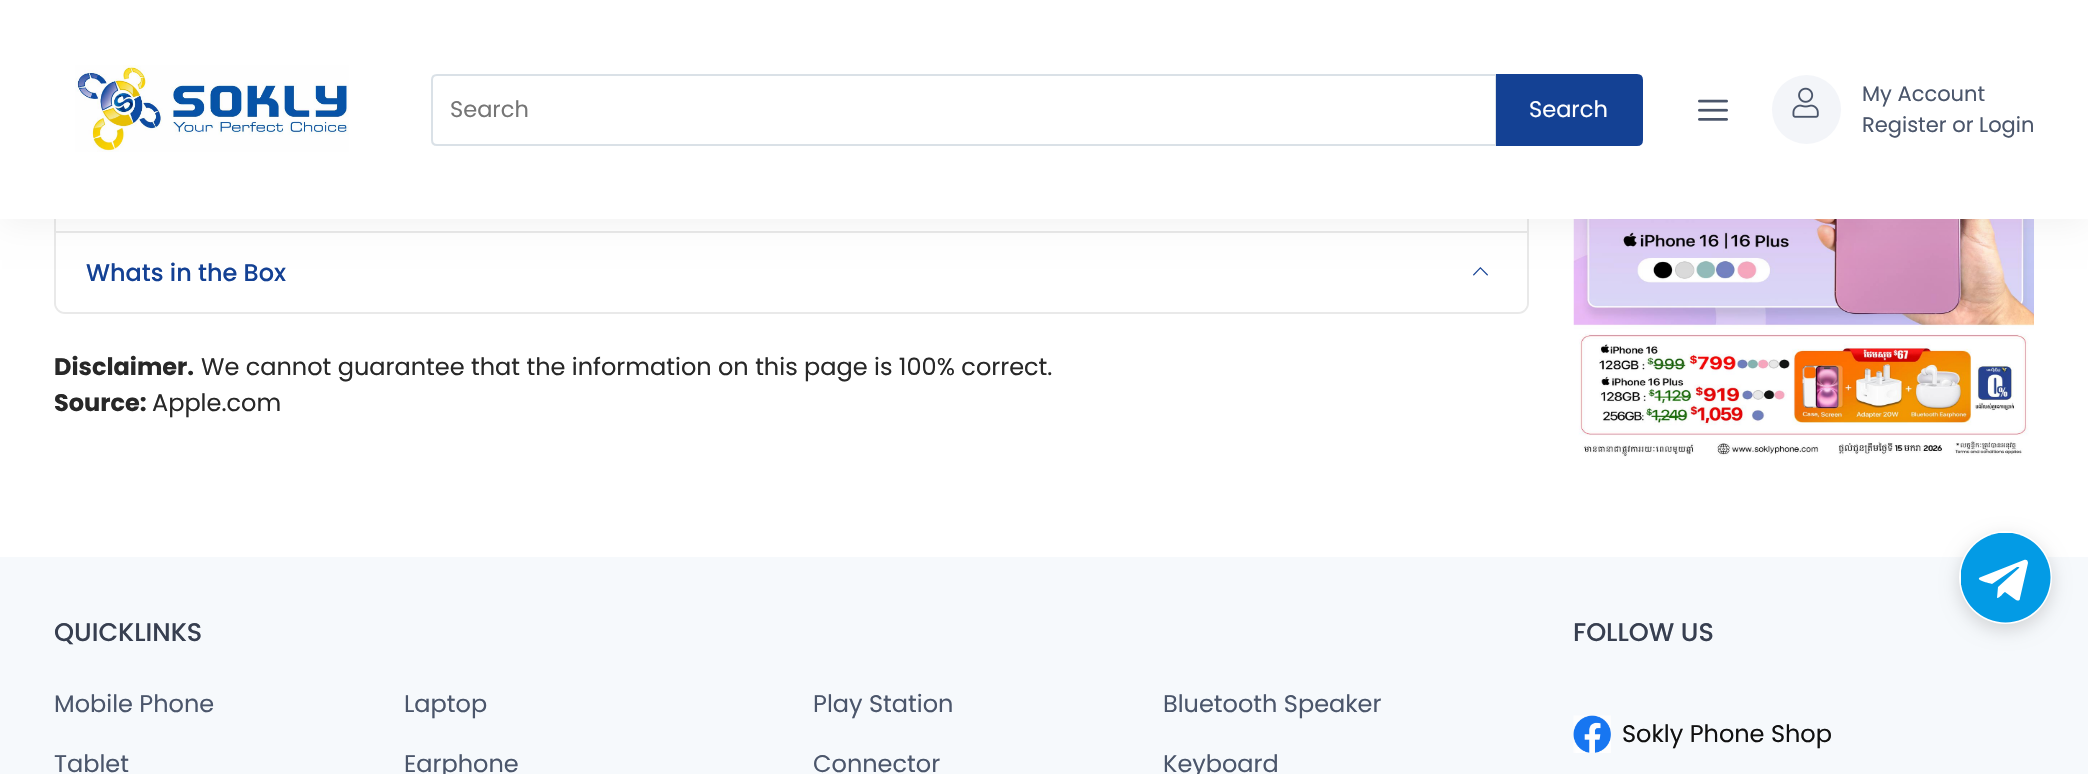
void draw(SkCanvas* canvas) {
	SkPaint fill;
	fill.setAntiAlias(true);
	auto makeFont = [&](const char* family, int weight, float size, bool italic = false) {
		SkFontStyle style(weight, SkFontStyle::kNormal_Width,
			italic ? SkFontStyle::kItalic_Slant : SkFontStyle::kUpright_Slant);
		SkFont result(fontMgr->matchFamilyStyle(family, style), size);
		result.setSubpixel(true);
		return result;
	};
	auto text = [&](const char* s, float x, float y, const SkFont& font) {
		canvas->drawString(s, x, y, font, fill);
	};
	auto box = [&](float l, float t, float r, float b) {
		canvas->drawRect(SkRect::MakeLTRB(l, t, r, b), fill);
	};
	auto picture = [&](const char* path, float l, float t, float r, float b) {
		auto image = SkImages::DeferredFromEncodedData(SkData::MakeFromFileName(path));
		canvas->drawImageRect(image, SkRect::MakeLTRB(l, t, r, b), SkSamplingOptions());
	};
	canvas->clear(0xFFFFFFFF);
	fill.setStyle(SkPaint::kStroke_Style);
	fill.setStrokeWidth(2);
	fill.setColor(0xFFE9E9E9);
	canvas->drawRoundRect(SkRect::MakeLTRB(55, -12, 1528, 313), 10, 10, fill);
	fill.setStyle(SkPaint::kFill_Style);
	fill.setColor(0xFFFFFFFF);
	canvas->drawPath(SkPathBuilder().moveTo(56, 231).lineTo(1527, 231).lineTo(1527, 303).cubicTo(1527, 308, 1523, 312, 1518, 312).lineTo(65, 312).cubicTo(60, 312, 56, 308, 56, 303).close().detach(), fill);
	fill.setColor(0xFFE9E9E9);
	box(56, 231, 1527, 233);
	picture("image3.png", 1473, 267, 1488, 276);
	picture("image4.png", 1573, 219, 2034, 457);
	fill.setColor(0x0D000000);
	fill.setMaskFilter(SkMaskFilter::MakeBlur(kNormal_SkBlurStyle, 15));
	canvas->drawRect(SkRect::MakeLTRB(2, 8, 2087, 224), fill);
	fill.setMaskFilter(nullptr);
	fill.setColor(0xFFFFFFFF);
	box(0, 0, 2088, 219);
	picture("image0.png", 75, 65, 349, 152);
	fill.setStyle(SkPaint::kStroke_Style);
	fill.setColor(0xFFDAE1E7);
	canvas->drawPath(SkPathBuilder().moveTo(437, 75).lineTo(1496, 75).lineTo(1496, 145).lineTo(437, 145).cubicTo(434, 145, 432, 143, 432, 140).lineTo(432, 80).cubicTo(432, 77, 434, 75, 437, 75).close().detach(), fill);
	fill.setStyle(SkPaint::kFill_Style);
	fill.setColor(0xFF144194);
	canvas->drawPath(SkPathBuilder().moveTo(1497, 75).lineTo(1637, 75).cubicTo(1640, 75, 1642, 77, 1642, 80).lineTo(1642, 140).cubicTo(1642, 143, 1640, 145, 1637, 145).lineTo(1497, 145).close().detach(), fill);
	fill.setStyle(SkPaint::kStroke_Style);
	canvas->drawPath(SkPathBuilder().moveTo(1497, 75).lineTo(1637, 75).cubicTo(1640, 75, 1642, 77, 1642, 80).lineTo(1642, 140).cubicTo(1642, 143, 1640, 145, 1637, 145).lineTo(1497, 145).close().detach(), fill);
	picture("image1.png", 1698, 99, 1728, 121);
	fill.setStyle(SkPaint::kFill_Style);
	fill.setColor(0xFFF3F5F9);
	canvas->drawCircle(1806.5f, 109.5f, 34.5f, fill);
	picture("image2.png", 1792, 87, 1819, 118);
	fill.setColor(0xFFF6F9FC);
	box(0, 557, 2088, 774);
	fill.setColor(0x26000000);
	fill.setMaskFilter(SkMaskFilter::MakeBlur(kNormal_SkBlurStyle, 9));
	canvas->drawRoundRect(SkRect::MakeLTRB(1959, 537, 2052, 630), 46.5f, 46.5f, fill);
	fill.setMaskFilter(nullptr);
	fill.setColor(0xFFFFFFFF);
	canvas->drawCircle(2005.5f, 577.5f, 46.5f, fill);
	canvas->save();
	canvas->clipRect(SkRect::MakeLTRB(1961, 533, 2051, 623));
	fill.setColor(0xFF039BE5);
	canvas->drawCircle(2005.5f, 577.5f, 45, fill);
	canvas->restore();
	fill.setColor(0xFFFFFFFF);
	canvas->drawPath(SkPathBuilder().moveTo(1981, 577).lineTo(2024, 560).cubicTo(2026, 559, 2028, 560, 2028, 563).lineTo(2020, 598).cubicTo(2020, 601, 2018, 601, 2016, 600).lineTo(2005, 592).cubicTo(2003, 593, 2000, 598, 1997, 598).lineTo(1998, 587).lineTo(2019, 568).cubicTo(2020, 567, 2019, 567, 2017, 567).lineTo(1992, 584).cubicTo(1990, 583, 1973, 580, 1981, 577).close().detach(), fill);
	picture("image5.png", 1573, 715, 1611, 753);
	auto font1 = makeFont("Poppins", 400, 22.5f);
	fill.setColor(0xFF757575);
	text("Search", 450, 117, font1);
	fill.setColor(0xFFFFFFFF);
	text("Search", 1529, 117, font1);
	auto font2 = makeFont("Poppins", 400, 21);
	fill.setColor(0xFF4B566B);
	text("My Account", 1862, 101, font2);
	text("Register or Login", 1862, 132, font2);
	auto font3 = makeFont("Poppins", 500, 24);
	fill.setColor(0xFF144194);
	text("Whats in the Box", 86, 281, font3);
	auto font4 = makeFont("Poppins", 700, 24);
	fill.setColor(0xFF282828);
	text("Disclaimer.", 54, 375, font4);
	auto font5 = makeFont("Poppins", 400, 24);
	text("We cannot guarantee that the information on this page is 100% correct.", 201, 375, font5);
	text("Source:", 54, 411, font4);
	text("Apple.com", 152, 411, font5);
	auto font6 = makeFont("Poppins", 500, 25.5f);
	fill.setColor(0xFF373F50);
	text("QUICKLINKS", 54, 641, font6);
	fill.setColor(0xFF4B566B);
	text("Mobile Phone", 54, 712, font5);
	text("Laptop", 404, 712, font5);
	text("Tablet", 54, 772, font5);
	text("Earphone", 404, 772, font5);
	text("Play Station", 813, 712, font5);
	text("Bluetooth Speaker", 1163, 712, font5);
	text("Connector", 813, 772, font5);
	text("Keyboard", 1163, 772, font5);
	fill.setColor(0xFF373F50);
	text("FOLLOW US", 1573, 641, font6);
	fill.setColor(0xFF111111);
	text("Sokly Phone Shop", 1622, 742, font5);
}
